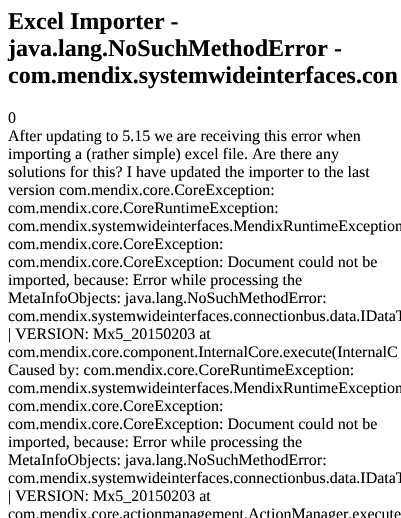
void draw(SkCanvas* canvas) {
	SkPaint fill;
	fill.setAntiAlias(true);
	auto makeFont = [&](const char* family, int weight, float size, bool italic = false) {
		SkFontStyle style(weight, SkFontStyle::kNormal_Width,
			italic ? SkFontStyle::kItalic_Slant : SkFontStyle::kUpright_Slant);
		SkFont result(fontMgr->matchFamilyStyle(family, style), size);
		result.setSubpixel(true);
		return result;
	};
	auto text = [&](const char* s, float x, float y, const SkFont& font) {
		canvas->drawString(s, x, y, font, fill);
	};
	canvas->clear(0xFFFFFFFF);
	auto font1 = makeFont("Liberation Serif", 700, 24);
	fill.setColor(0xFF000000);
	text("Excel Importer -", 8, 29, font1);
	text("java.lang.NoSuchMethodError -", 8, 56, font1);
	text("com.mendix.systemwideinterfaces.con", 8, 83, font1);
	auto font2 = makeFont("Liberation Serif", 400, 16);
	text("0", 8, 123, font2);
	text("After updating to 5.15 we are receiving this error when", 8, 141, font2);
	text("importing a (rather simple) excel file. Are there any", 8, 159, font2);
	text("solutions for this? I have updated the importer to the last", 8, 177, font2);
	text("version com.mendix.core.CoreException:", 8, 195, font2);
	text("com.mendix.core.CoreRuntimeException:", 8, 213, font2);
	text("com.mendix.systemwideinterfaces.MendixRuntimeException", 8, 231, font2);
	text("com.mendix.core.CoreException:", 8, 249, font2);
	text("com.mendix.core.CoreException: Document could not be", 8, 267, font2);
	text("imported, because: Error while processing the", 8, 285, font2);
	text("MetaInfoObjects: java.lang.NoSuchMethodError:", 8, 303, font2);
	text("com.mendix.systemwideinterfaces.connectionbus.data.IDataT", 8, 321, font2);
	text("| VERSION: Mx5_20150203 at", 8, 339, font2);
	text("com.mendix.core.component.InternalCore.execute(InternalC", 8, 357, font2);
	text("Caused by: com.mendix.core.CoreRuntimeException:", 8, 375, font2);
	text("com.mendix.systemwideinterfaces.MendixRuntimeException", 8, 393, font2);
	text("com.mendix.core.CoreException:", 8, 411, font2);
	text("com.mendix.core.CoreException: Document could not be", 8, 429, font2);
	text("imported, because: Error while processing the", 8, 447, font2);
	text("MetaInfoObjects: java.lang.NoSuchMethodError:", 8, 465, font2);
	text("com.mendix.systemwideinterfaces.connectionbus.data.IDataT", 8, 483, font2);
	text("| VERSION: Mx5_20150203 at", 8, 501, font2);
	text("com.mendix.core.actionmanagement.ActionManager.execute", 8, 519, font2);
}
